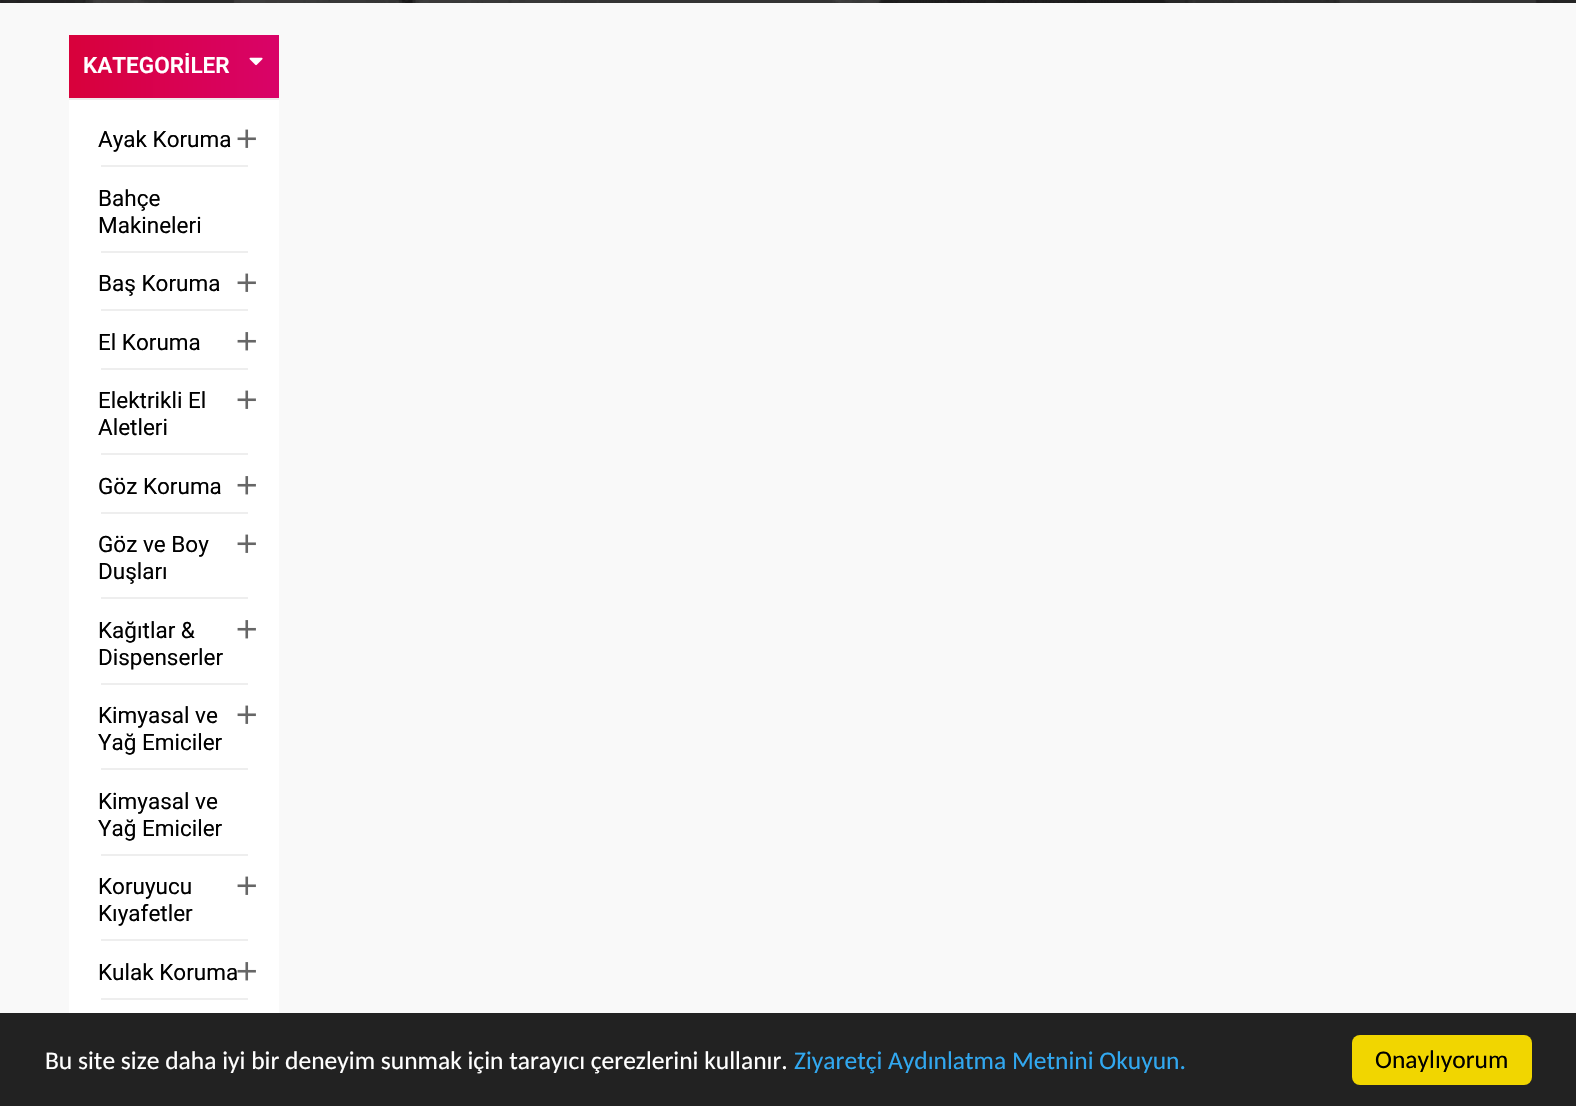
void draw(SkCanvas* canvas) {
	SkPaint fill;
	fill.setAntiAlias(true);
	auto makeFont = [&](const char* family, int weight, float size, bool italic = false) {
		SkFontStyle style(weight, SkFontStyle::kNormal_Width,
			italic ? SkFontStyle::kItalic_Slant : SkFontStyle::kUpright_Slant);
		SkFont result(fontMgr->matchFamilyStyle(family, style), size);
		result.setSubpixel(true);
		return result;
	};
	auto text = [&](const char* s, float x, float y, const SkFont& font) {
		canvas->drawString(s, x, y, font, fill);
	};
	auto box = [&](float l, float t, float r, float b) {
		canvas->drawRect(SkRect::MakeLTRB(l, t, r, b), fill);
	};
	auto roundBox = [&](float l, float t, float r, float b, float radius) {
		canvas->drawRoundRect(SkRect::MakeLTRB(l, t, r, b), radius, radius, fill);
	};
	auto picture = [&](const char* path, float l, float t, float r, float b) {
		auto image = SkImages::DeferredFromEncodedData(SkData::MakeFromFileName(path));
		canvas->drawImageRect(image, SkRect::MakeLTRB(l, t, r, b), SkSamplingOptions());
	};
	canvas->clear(0xFFF9F9F9);
	picture("image0.png", 0, 0, 1576, 3);
	fill.setColor(0xFFFFFFFF);
	box(69, 100, 279, 1013);
	{
		const SkColor colors[] = {0xFFD80032, 0xFFD90368};
		const float stops[] = {0, 1};
		const SkPoint ends[] = {{27, 66}, {279, 66}};
		fill.setShader(SkGradientShader::MakeLinear(ends, colors, stops, 2, SkTileMode::kClamp));
		fill.setAlpha(255);
	}
	box(69, 35, 279, 98);
	fill.setShader(nullptr);
	fill.setColor(0xFFEFEBEB);
	box(69, 98, 279, 100);
	picture("image1.png", 249, 57, 263, 66);
	fill.setColor(0xFFEEEEEE);
	box(101, 165, 248, 167);
	picture("image2.png", 237, 129, 256, 148);
	box(101, 251, 248, 253);
	box(101, 309, 248, 311);
	picture("image2.png", 237, 273, 256, 292);
	box(101, 368, 248, 370);
	picture("image3.png", 237, 332, 256, 351);
	box(101, 453, 248, 455);
	picture("image2.png", 237, 390, 256, 409);
	box(101, 512, 248, 514);
	picture("image3.png", 237, 476, 256, 495);
	box(101, 597, 248, 599);
	picture("image2.png", 237, 534, 256, 553);
	box(101, 683, 248, 685);
	picture("image3.png", 237, 620, 256, 639);
	box(101, 768, 248, 770);
	picture("image2.png", 237, 705, 256, 724);
	box(101, 854, 248, 856);
	box(101, 939, 248, 941);
	picture("image2.png", 237, 876, 256, 895);
	box(101, 998, 248, 1000);
	fill.setColor(0xFF222222);
	box(0, 1013, 1576, 1106);
	fill.setColor(0xFFF1D600);
	roundBox(1352, 1035, 1532, 1085, 8);
	auto font1 = makeFont("Roboto", 600, 22.5f);
	fill.setColor(0xFFFFFFFF);
	text("KATEGORİLER", 83, 73, font1);
	auto font2 = makeFont("Roboto", 400, 22.5f);
	fill.setColor(0xFF000000);
	text("Ayak Koruma", 98, 147, font2);
	text("Bahçe", 98, 206, font2);
	text("Makineleri", 98, 233, font2);
	text("Baş Koruma", 98, 291, font2);
	text("El Koruma", 98, 350, font2);
	text("Elektrikli El", 98, 408, font2);
	text("Aletleri", 98, 435, font2);
	text("Göz Koruma", 98, 494, font2);
	text("Göz ve Boy", 98, 552, font2);
	text("Duşları", 98, 579, font2);
	text("Kağıtlar &", 98, 638, font2);
	text("Dispenserler", 98, 665, font2);
	text("Kimyasal ve", 98, 723, font2);
	text("Yağ Emiciler", 98, 750, font2);
	text("Kimyasal ve", 98, 809, font2);
	text("Yağ Emiciler", 98, 836, font2);
	text("Koruyucu", 98, 894, font2);
	text("Kıyafetler", 98, 921, font2);
	text("Kulak Koruma", 98, 980, font2);
	picture("image4.png", 237, 962, 256, 981);
	auto font3 = makeFont("Carlito", 400, 25.5f);
	fill.setColor(0xFFFFFFFF);
	text("Bu site size daha iyi bir deneyim sunmak için tarayıcı çerezlerini kullanır.", 45, 1069, font3);
	fill.setColor(0xFF31A8F0);
	text("Ziyaretçi Aydınlatma Metnini Okuyun.", 794, 1069, font3);
	fill.setColor(0xFF000000);
	text("Onaylıyorum", 1375, 1068, font3);
}
